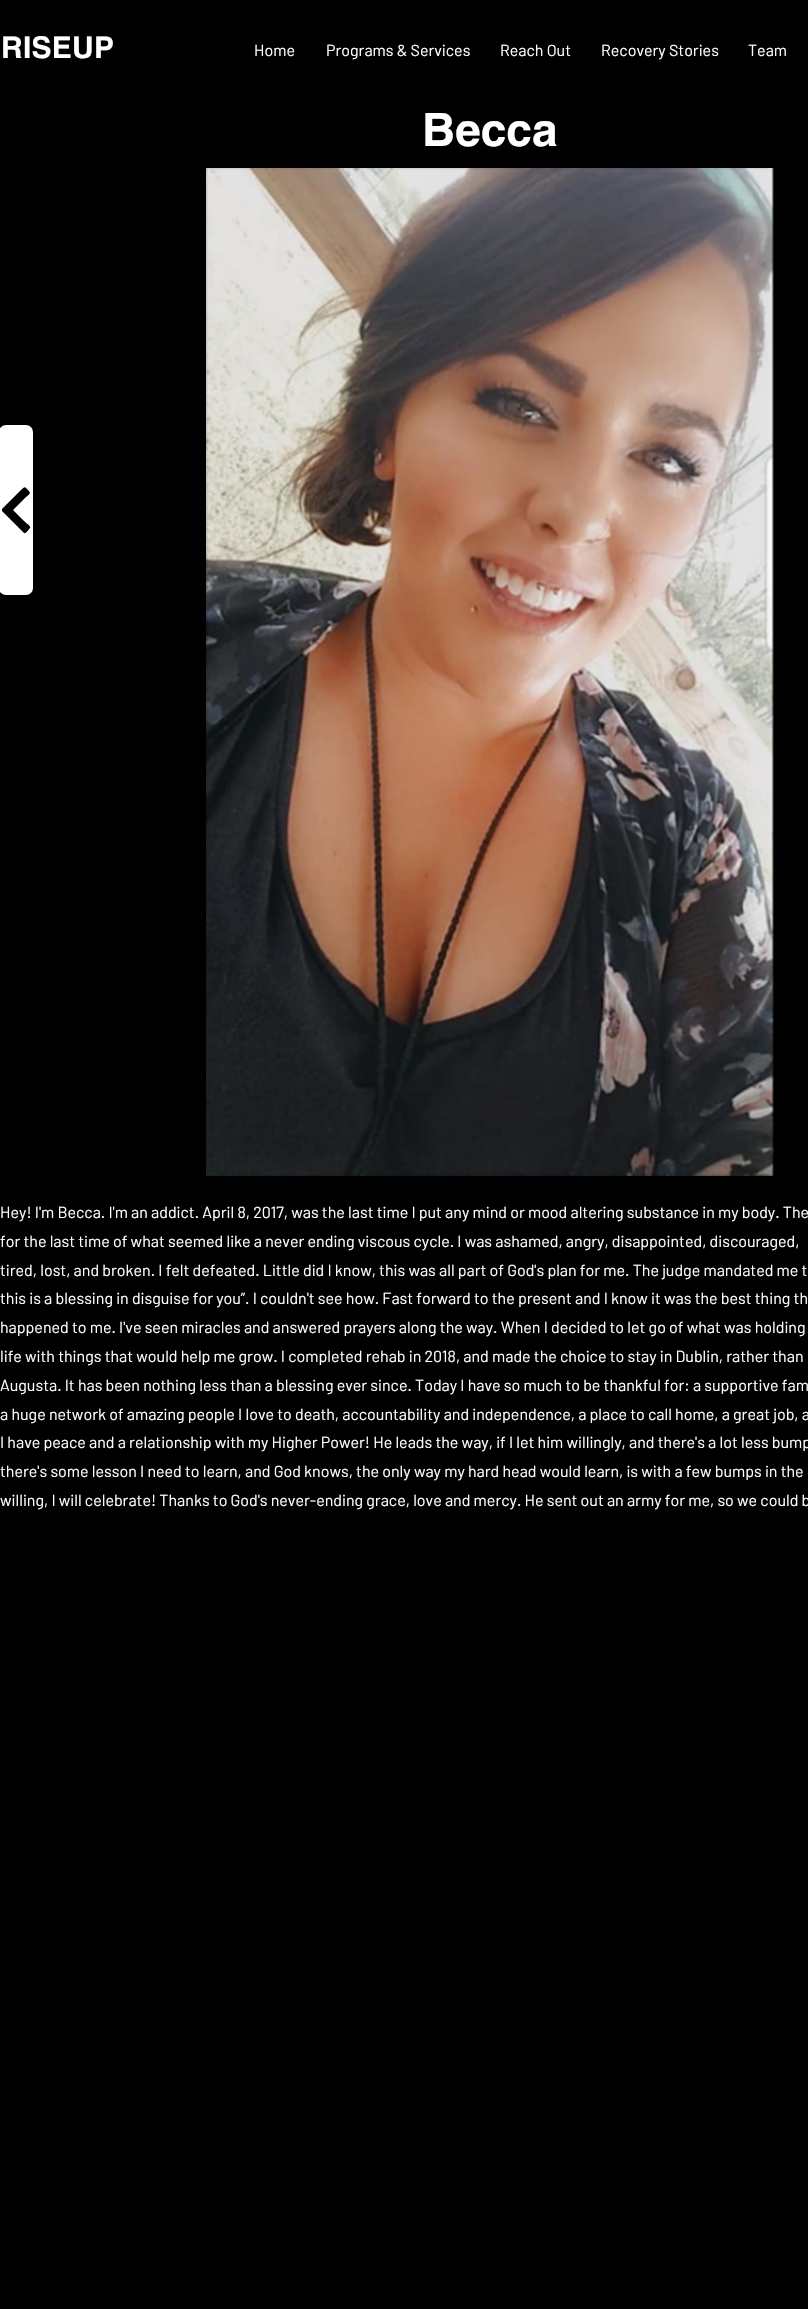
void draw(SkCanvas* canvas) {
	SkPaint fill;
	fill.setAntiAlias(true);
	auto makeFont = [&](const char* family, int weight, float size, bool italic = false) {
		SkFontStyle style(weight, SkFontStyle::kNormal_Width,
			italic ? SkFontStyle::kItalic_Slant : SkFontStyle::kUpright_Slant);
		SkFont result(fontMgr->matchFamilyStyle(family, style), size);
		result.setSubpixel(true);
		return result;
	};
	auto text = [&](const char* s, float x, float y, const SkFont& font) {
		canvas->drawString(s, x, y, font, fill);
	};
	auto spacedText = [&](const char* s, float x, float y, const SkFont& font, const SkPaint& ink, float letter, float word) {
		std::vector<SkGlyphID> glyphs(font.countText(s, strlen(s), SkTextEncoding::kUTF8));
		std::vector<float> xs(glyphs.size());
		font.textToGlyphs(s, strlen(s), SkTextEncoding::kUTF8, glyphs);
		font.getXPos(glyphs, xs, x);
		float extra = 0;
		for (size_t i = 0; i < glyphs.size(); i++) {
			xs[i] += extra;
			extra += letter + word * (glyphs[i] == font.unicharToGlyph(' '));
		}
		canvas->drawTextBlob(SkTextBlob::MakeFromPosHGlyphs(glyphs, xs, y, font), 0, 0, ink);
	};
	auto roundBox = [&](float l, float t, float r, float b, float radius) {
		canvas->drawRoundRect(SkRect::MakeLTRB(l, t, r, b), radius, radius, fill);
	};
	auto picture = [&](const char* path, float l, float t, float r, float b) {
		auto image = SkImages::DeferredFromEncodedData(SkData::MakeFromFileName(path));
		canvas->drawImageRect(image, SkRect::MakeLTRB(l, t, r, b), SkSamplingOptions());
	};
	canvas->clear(0xFF000000);
	fill.setColor(0xFFFFFFFF);
	roundBox(-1, 425, 33, 595, 7);
	fill.setColor(0xFF000000);
	canvas->drawPath(SkPathBuilder().moveTo(2, 511).lineTo(24, 533).cubicTo(26, 534, 29, 529, 30, 528).cubicTo(32, 527, 25, 522, 24, 521).lineTo(13, 510).lineTo(24, 499).cubicTo(29, 494, 32, 494, 28, 490).cubicTo(24, 486, 25, 487, 21, 490).lineTo(2, 509).close().detach(), fill);
	picture("image0.png", 206, 168, 774, 1176);
	auto font1 = makeFont("helvetica", 700, 30);
	fill.setColor(0xFFFFFFFF);
	spacedText("RISEUP", 1, 58, font1, fill, 0.25f, 0);
	auto font2 = makeFont("Barlow", 400, 16);
	text("Home", 254, 56, font2);
	text("Programs & Services", 326, 56, font2);
	text("Reach Out", 500, 56, font2);
	text("Recovery Stories", 601, 56, font2);
	text("Team", 748, 56, font2);
	auto font3 = makeFont("helvetica", 700, 46);
	text("Becca", 422, 146, font3);
	text("Hey! I'm Becca. I'm an addict. April 8, 2017, was the last time I put any mind or mood altering substance in my body. The", 0, 1218, font2);
	text("for the last time of what seemed like a never ending viscous cycle. I was ashamed, angry, disappointed, discouraged,", 0, 1247, font2);
	text("tired, lost, and broken. I felt defeated. Little did I know, this was all part of God's plan for me. The judge mandated me t", 0, 1276, font2);
	text("this is a blessing in disguise for you”. I couldn't see how. Fast forward to the present and I know it was the best thing th", 0, 1304, font2);
	text("happened to me. I've seen miracles and answered prayers along the way. When I decided to let go of what was holding", 0, 1333, font2);
	text("life with things that would help me grow. I completed rehab in 2018, and made the choice to stay in Dublin, rather than", 0, 1362, font2);
	text("Augusta. It has been nothing less than a blessing ever since. Today I have so much to be thankful for: a supportive fam", 0, 1391, font2);
	text("a huge network of amazing people I love to death, accountability and independence, a place to call home, a great job, a", 0, 1420, font2);
	text("I have peace and a relationship with my Higher Power! He leads the way, if I let him willingly, and there's a lot less bump", 0, 1448, font2);
	text("there's some lesson I need to learn, and God knows, the only way my hard head would learn, is with a few bumps in the", 0, 1477, font2);
	text("willing, I will celebrate! Thanks to God's never-ending grace, love and mercy. He sent out an army for me, so we could b", 0, 1506, font2);
}
